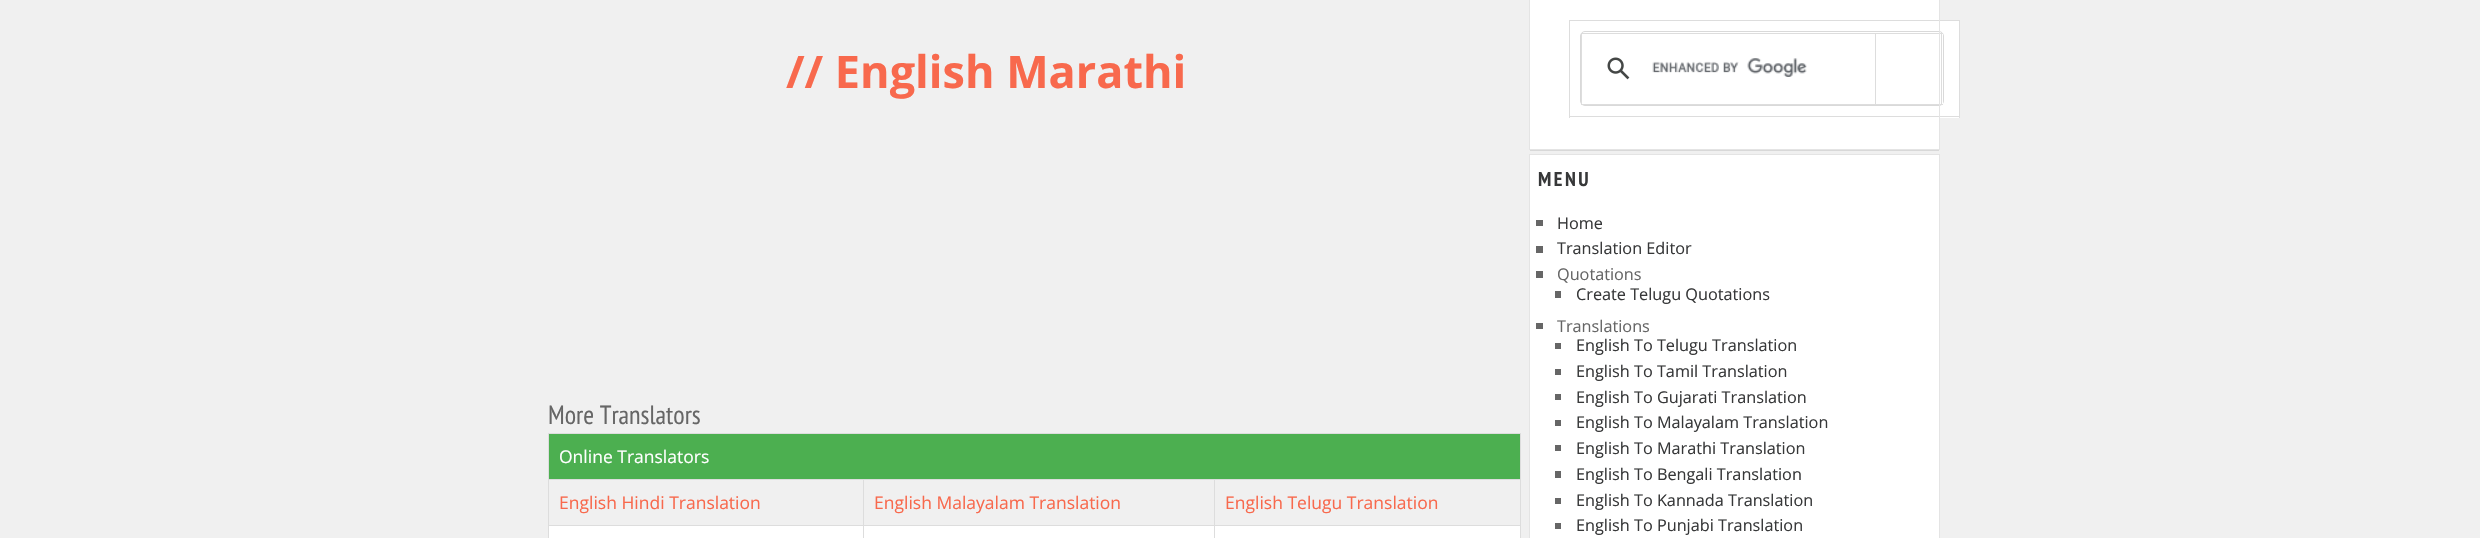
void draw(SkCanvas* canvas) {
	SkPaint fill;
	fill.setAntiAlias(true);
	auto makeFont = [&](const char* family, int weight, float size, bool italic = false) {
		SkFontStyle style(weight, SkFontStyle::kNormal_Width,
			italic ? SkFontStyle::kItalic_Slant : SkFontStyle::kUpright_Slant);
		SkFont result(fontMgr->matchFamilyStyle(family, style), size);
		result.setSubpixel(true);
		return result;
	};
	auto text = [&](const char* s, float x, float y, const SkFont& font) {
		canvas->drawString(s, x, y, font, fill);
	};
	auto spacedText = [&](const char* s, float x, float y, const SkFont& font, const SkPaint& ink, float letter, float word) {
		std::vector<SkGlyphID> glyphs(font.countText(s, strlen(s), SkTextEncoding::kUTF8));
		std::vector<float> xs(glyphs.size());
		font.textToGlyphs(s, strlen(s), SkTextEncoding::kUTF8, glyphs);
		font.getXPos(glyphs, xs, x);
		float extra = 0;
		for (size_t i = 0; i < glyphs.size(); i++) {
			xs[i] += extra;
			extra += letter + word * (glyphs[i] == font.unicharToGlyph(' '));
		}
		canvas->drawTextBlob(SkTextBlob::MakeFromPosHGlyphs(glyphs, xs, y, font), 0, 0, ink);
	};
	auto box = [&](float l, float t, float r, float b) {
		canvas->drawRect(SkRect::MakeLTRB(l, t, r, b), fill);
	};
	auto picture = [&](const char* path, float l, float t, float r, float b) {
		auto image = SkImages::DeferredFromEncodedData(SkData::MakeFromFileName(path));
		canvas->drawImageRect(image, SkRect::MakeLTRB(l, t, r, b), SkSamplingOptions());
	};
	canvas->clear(0xFFF0F0F0);
	fill.setColor(0xFFFFFFFF);
	box(549, 526, 1520, 538);
	fill.setColor(0xFF4CAF50);
	box(549, 434, 1520, 479);
	fill.setColor(0xFFDDDDDD);
	box(548, 433, 1521, 434);
	box(1214, 479, 1521, 480);
	box(1214, 525, 1521, 526);
	box(1520, 525, 1521, 538);
	box(1520, 479, 1521, 526);
	box(1520, 433, 1521, 480);
	box(1214, 525, 1215, 538);
	box(863, 525, 1215, 526);
	box(1214, 479, 1215, 526);
	box(863, 479, 1215, 480);
	box(863, 525, 864, 538);
	box(548, 525, 864, 526);
	box(863, 479, 864, 526);
	box(548, 479, 864, 480);
	box(548, 525, 549, 538);
	box(548, 479, 549, 526);
	box(548, 433, 549, 480);
	fill.setColor(0xFFD8D8D8);
	canvas->drawPath(SkPathBuilder().moveTo(1530, 149).lineTo(1530, 151).lineTo(1939, 151).lineTo(1939, -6).lineTo(1939, 149).close().detach(), fill);
	fill.setColor(0xFFFFFFFF);
	box(1530, 0, 1939, 149);
	box(1939, 21, 1959, 118);
	fill.setColor(0xFFDDDDDD);
	box(1569, 20, 1960, 21);
	box(1959, 20, 1960, 118);
	box(1569, 116, 1960, 117);
	box(1569, 20, 1570, 118);
	fill.setStyle(SkPaint::kStroke_Style);
	fill.setStrokeWidth(1);
	fill.setColor(0xFFD9D9D9);
	canvas->drawRoundRect(SkRect::MakeLTRB(1580.5f, 31.5f, 1943.5f, 105.5f), 4.5f, 4.5f, fill);
	picture("image0.png", 1607, 57, 1630, 80);
	fill.setStyle(SkPaint::kFill_Style);
	fill.setColor(0xFFDDDDDD);
	box(1875, 33, 1943, 34);
	fill.setColor(0xFFFFFFFF);
	box(1941, 34, 1943, 104);
	fill.setColor(0xFFDDDDDD);
	box(1941, 33, 1942, 105);
	box(1875, 104, 1943, 105);
	box(1875, 33, 1876, 105);
	box(1581, 33, 1876, 34);
	box(1581, 104, 1876, 105);
	box(1581, 33, 1582, 105);
	picture("image1.png", 1652, 58, 1807, 77);
	fill.setStyle(SkPaint::kStroke_Style);
	fill.setColor(0xFFE4E4E4);
	canvas->drawRect(SkRect::MakeLTRB(1529.5f, -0.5f, 1939.5f, 149.5f), fill);
	fill.setStyle(SkPaint::kFill_Style);
	fill.setColor(0xFFFFFFFF);
	box(1530, 155, 1939, 538);
	fill.setColor(0xFF666666);
	box(1536, 220, 1543, 226);
	box(1536, 246, 1543, 253);
	box(1536, 271, 1543, 278);
	box(1555, 291, 1561, 298);
	box(1536, 323, 1543, 329);
	box(1555, 343, 1561, 349);
	box(1555, 369, 1561, 375);
	box(1555, 394, 1561, 400);
	box(1555, 420, 1561, 426);
	box(1555, 445, 1561, 451);
	box(1555, 471, 1561, 478);
	box(1555, 498, 1561, 504);
	box(1555, 523, 1561, 529);
	fill.setStyle(SkPaint::kStroke_Style);
	fill.setColor(0xFFE4E4E4);
	canvas->drawRect(SkRect::MakeLTRB(1529.5f, 154.5f, 1939.5f, 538.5f), fill);
	auto font1 = makeFont("Open Sans", 700, 45);
	fill.setStyle(SkPaint::kFill_Style);
	fill.setColor(0xFFF8694D);
	text("// English Marathi", 786, 88, font1);
	auto font2 = makeFont("PT Sans Narrow", 400, 26.25f);
	fill.setColor(0xFF666666);
	text("More Translators", 548, 424, font2);
	auto font3 = makeFont("Open Sans", 400, 17.5f);
	fill.setColor(0xFFFFFFFF);
	text("Online Translators", 559, 463, font3);
	fill.setColor(0xFFF8694D);
	text("English Hindi Translation", 559, 509, font3);
	text("English Malayalam Translation", 874, 509, font3);
	text("English Telugu Translation", 1225, 509, font3);
	auto font4 = makeFont("PT Sans Narrow", 700, 20);
	fill.setColor(0xFF373839);
	spacedText("MENU", 1538, 186, font4, fill, 2.5f, 0);
	auto font5 = makeFont("Open Sans", 400, 16.25f);
	text("Home", 1557, 229, font5);
	text("Translation Editor", 1557, 254, font5);
	fill.setColor(0xFF666666);
	text("Quotations", 1557, 280, font5);
	fill.setColor(0xFF373839);
	text("Create Telugu Quotations", 1576, 300, font5);
	fill.setColor(0xFF666666);
	text("Translations", 1557, 332, font5);
	fill.setColor(0xFF373839);
	text("English To Telugu Translation", 1576, 351, font5);
	text("English To Tamil Translation", 1576, 377, font5);
	text("English To Gujarati Translation", 1576, 403, font5);
	text("English To Malayalam Translation", 1576, 428, font5);
	text("English To Marathi Translation", 1576, 454, font5);
	text("English To Bengali Translation", 1576, 480, font5);
	text("English To Kannada Translation", 1576, 506, font5);
	text("English To Punjabi Translation", 1576, 531, font5);
}
